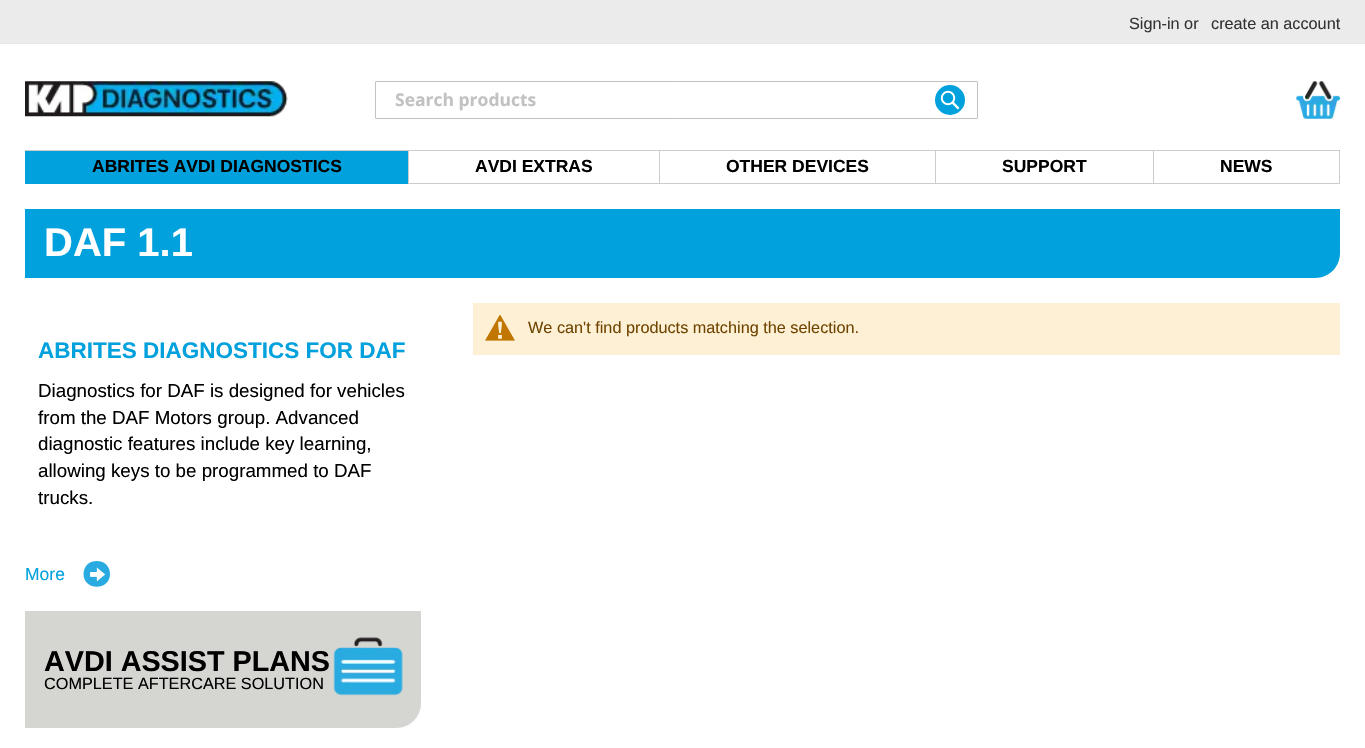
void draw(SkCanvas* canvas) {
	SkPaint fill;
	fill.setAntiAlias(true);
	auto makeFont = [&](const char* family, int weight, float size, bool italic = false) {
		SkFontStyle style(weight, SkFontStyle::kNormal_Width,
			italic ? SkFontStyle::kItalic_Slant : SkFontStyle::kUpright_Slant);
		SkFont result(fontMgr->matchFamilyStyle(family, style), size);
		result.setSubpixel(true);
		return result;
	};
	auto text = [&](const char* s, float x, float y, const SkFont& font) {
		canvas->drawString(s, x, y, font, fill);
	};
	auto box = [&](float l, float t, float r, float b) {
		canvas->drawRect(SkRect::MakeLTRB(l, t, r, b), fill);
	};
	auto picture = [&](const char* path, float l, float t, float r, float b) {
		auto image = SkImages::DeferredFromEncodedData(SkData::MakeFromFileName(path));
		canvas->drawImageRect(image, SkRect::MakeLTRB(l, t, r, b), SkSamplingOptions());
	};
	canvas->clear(0xFFFFFFFF);
	fill.setColor(0xFFEBEBEB);
	box(0, 0, 1365, 43);
	fill.setColor(0xFFE8E8E8);
	box(0, 43, 1365, 44);
	picture("image0.png", 25, 81, 288, 117);
	fill.setStyle(SkPaint::kStroke_Style);
	fill.setStrokeWidth(1);
	fill.setColor(0xFFC2C2C2);
	canvas->drawRoundRect(SkRect::MakeLTRB(375.5f, 81.5f, 977.5f, 118.5f), 0.5f, 0.5f, fill);
	fill.setStyle(SkPaint::kFill_Style);
	fill.setColor(0xFF00A1DD);
	canvas->drawCircle(950, 100, 15, fill);
	picture("image1.png", 940, 90, 960, 110);
	picture("image2.png", 1296, 81, 1340, 119);
	fill.setColor(0xFFCCCCCC);
	box(25, 150, 1340, 151);
	fill.setColor(0xFF00A1DD);
	box(25, 151, 408, 184);
	fill.setColor(0xFFCCCCCC);
	box(408, 183, 1153, 184);
	box(408, 151, 409, 184);
	box(659, 151, 660, 184);
	box(935, 151, 936, 184);
	box(1339, 151, 1340, 184);
	box(1153, 183, 1340, 184);
	box(1153, 151, 1154, 184);
	fill.setColor(0xFF00A1DD);
	canvas->drawPath(SkPathBuilder().moveTo(25, 209).lineTo(1340, 209).lineTo(1340, 253).cubicTo(1340, 267, 1329, 278, 1315, 278).lineTo(25, 278).close().detach(), fill);
	fill.setColor(0xFFFDF0D5);
	box(473, 303, 1340, 355);
	picture("image3.png", 485, 315, 515, 341);
	fill.setColor(0xFF29ABE1);
	canvas->drawPath(SkPathBuilder().moveTo(83.5f, 574).cubicTo(83.5f, 556.5f, 110, 556.5f, 110, 574).cubicTo(110, 591, 83.5f, 591, 83.5f, 574).close().detach(), fill);
	picture("image4.png", 90, 567, 106, 582);
	fill.setColor(0xFFD5D6D2);
	canvas->drawPath(SkPathBuilder().moveTo(25, 611).lineTo(421, 611).lineTo(421, 703).cubicTo(421, 717, 410, 728, 396, 728).lineTo(25, 728).close().detach(), fill);
	picture("image5.png", 333, 637, 403, 696);
	auto font1 = makeFont("Liberation Sans", 400, 16.25f);
	fill.setColor(0xFF333333);
	text("Sign-in or", 1129, 29, font1);
	text("create an account", 1211, 29, font1);
	auto font2 = makeFont("Open Sans", 700, 17.5f);
	fill.setColor(0xFFC2C2C2);
	text("Search products", 395, 106, font2);
	auto font3 = makeFont("Liberation Sans", 700, 17.5f);
	fill.setColor(0xFF000000);
	text("ABRITES AVDI DIAGNOSTICS", 92, 172, font3);
	text("AVDI EXTRAS", 475, 172, font3);
	text("OTHER DEVICES", 726, 172, font3);
	text("SUPPORT", 1002, 172, font3);
	text("NEWS", 1220, 172, font3);
	auto font4 = makeFont("Liberation Sans", 700, 40);
	fill.setColor(0xFFFFFFFF);
	text("DAF 1.1", 44, 256, font4);
	fill.setColor(0xFF6F4400);
	text("We can't find products matching the selection.", 528, 333, font1);
	auto font5 = makeFont("Liberation Sans", 700, 22.5f);
	fill.setColor(0xFF00A1DD);
	text("ABRITES DIAGNOSTICS FOR DAF", 38, 358, font5);
	auto font6 = makeFont("Liberation Sans", 400, 18.75f);
	fill.setColor(0xFF000000);
	text("Diagnostics for DAF is designed for vehicles", 38, 397, font6);
	text("from the DAF Motors group. Advanced", 38, 424, font6);
	text("diagnostic features include key learning,", 38, 450, font6);
	text("allowing keys to be programmed to DAF", 38, 477, font6);
	text("trucks.", 38, 504, font6);
	auto font7 = makeFont("Liberation Sans", 400, 17.5f);
	fill.setColor(0xFF00A1DD);
	text("More", 25, 580, font7);
	auto font8 = makeFont("Liberation Sans", 700, 28.75f);
	fill.setColor(0xFF000000);
	text("AVDI ASSIST PLANS", 44, 671, font8);
	text("COMPLETE AFTERCARE SOLUTION", 44, 689, font1);
}
